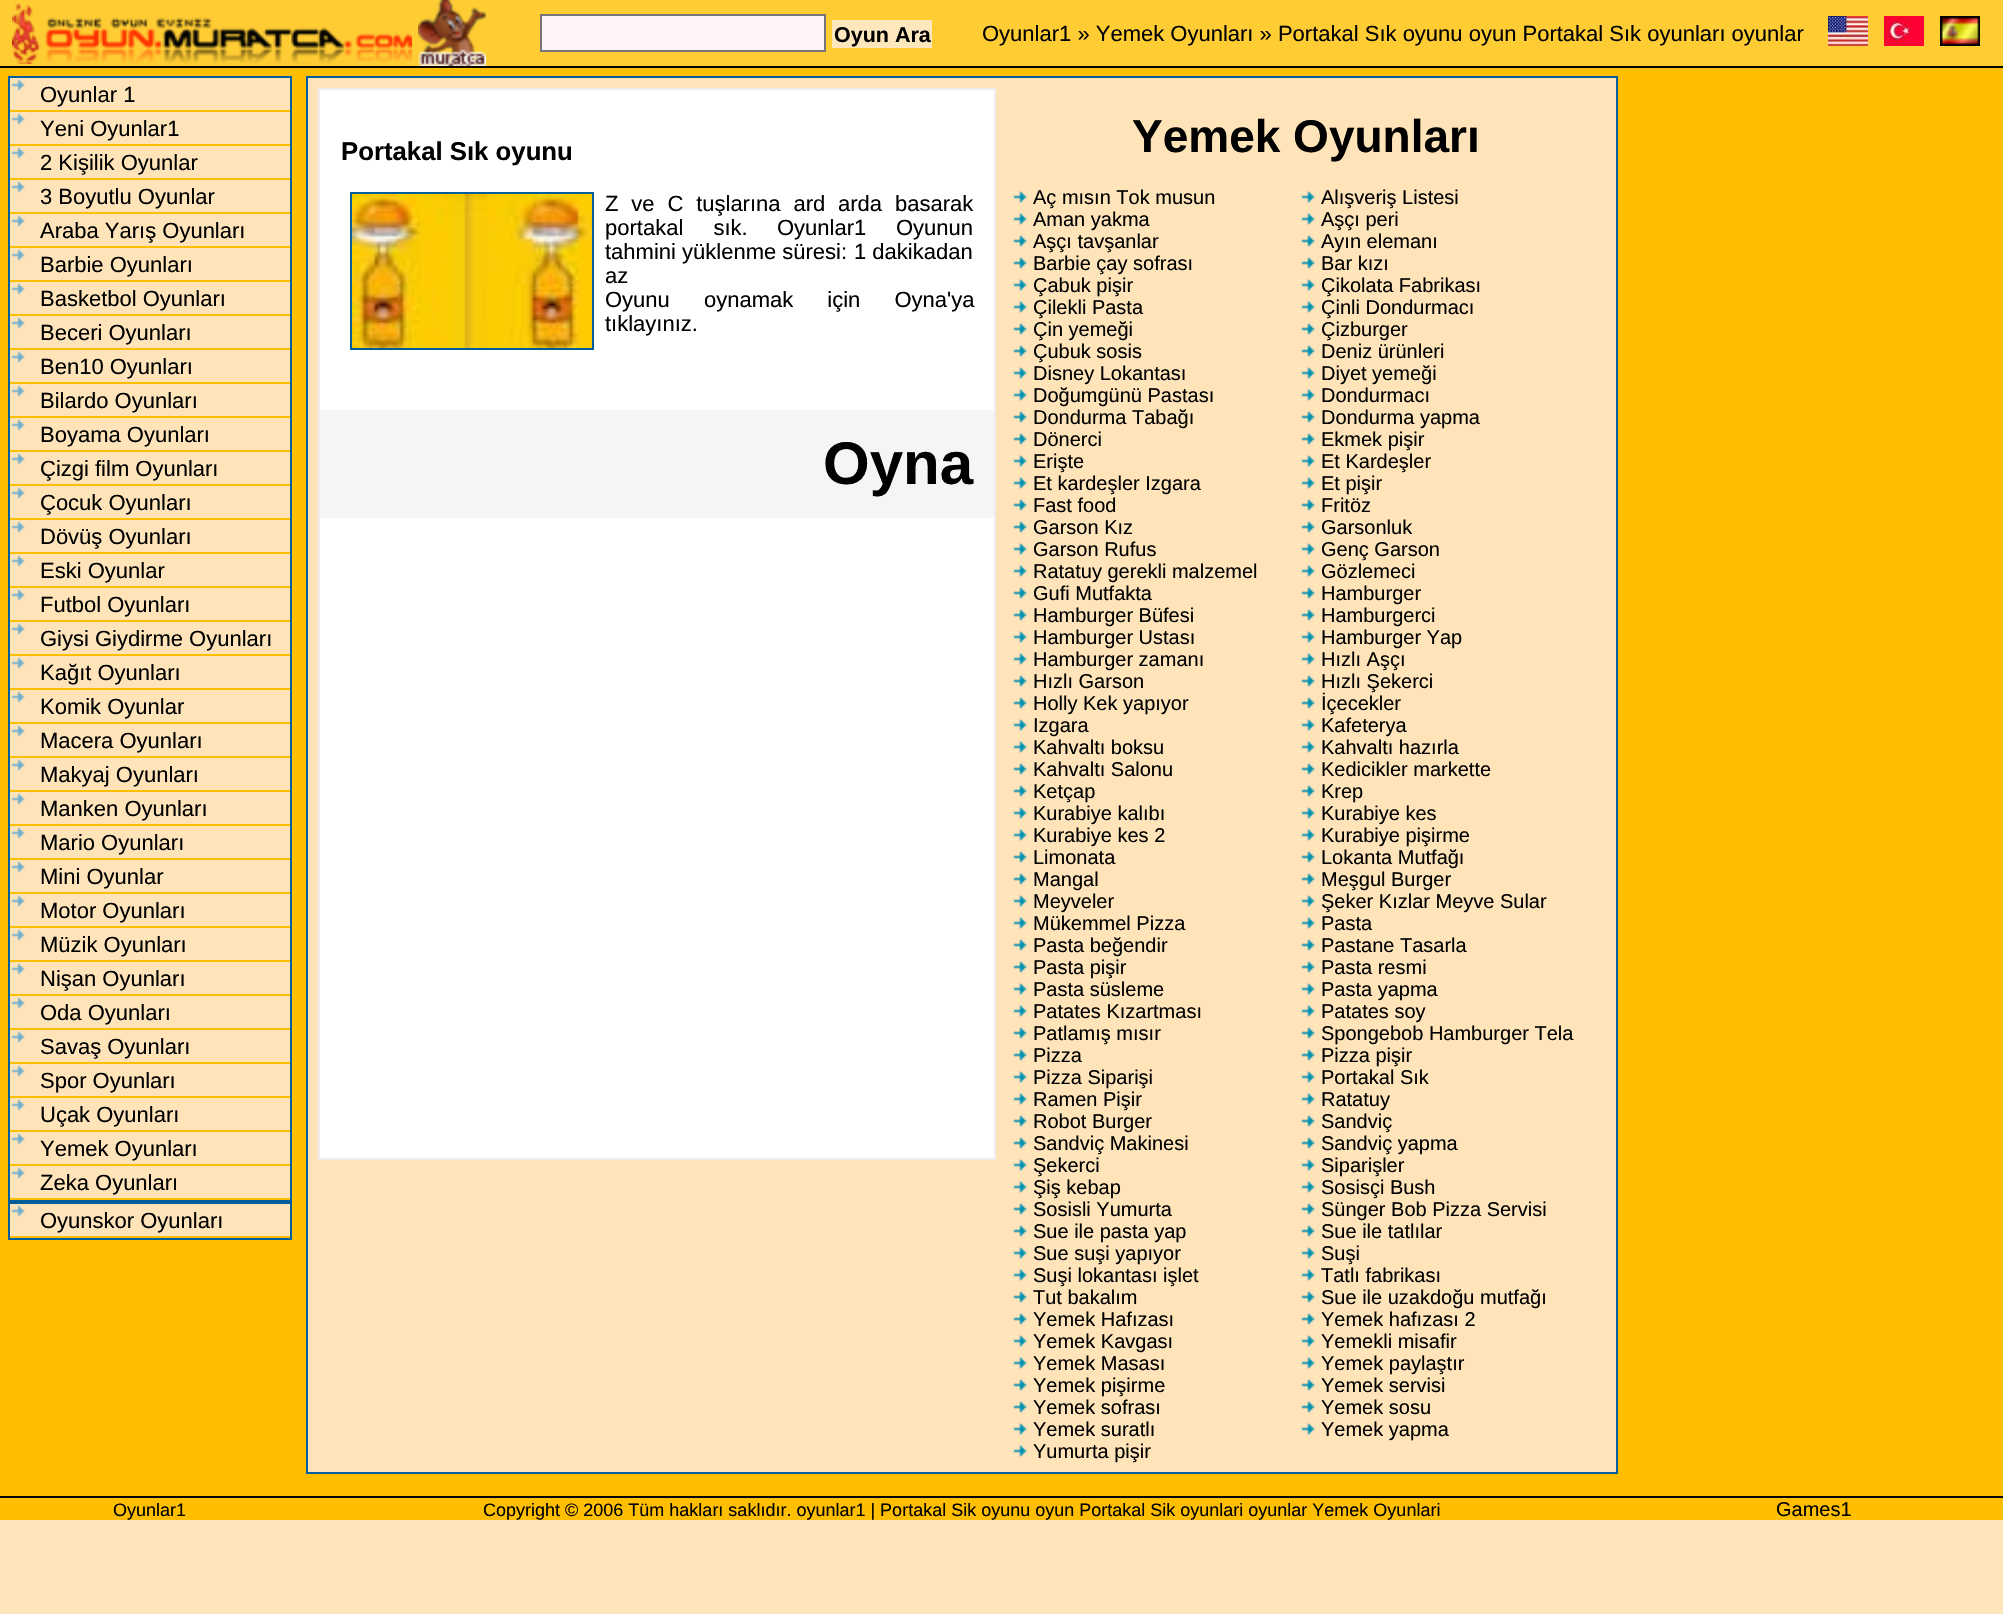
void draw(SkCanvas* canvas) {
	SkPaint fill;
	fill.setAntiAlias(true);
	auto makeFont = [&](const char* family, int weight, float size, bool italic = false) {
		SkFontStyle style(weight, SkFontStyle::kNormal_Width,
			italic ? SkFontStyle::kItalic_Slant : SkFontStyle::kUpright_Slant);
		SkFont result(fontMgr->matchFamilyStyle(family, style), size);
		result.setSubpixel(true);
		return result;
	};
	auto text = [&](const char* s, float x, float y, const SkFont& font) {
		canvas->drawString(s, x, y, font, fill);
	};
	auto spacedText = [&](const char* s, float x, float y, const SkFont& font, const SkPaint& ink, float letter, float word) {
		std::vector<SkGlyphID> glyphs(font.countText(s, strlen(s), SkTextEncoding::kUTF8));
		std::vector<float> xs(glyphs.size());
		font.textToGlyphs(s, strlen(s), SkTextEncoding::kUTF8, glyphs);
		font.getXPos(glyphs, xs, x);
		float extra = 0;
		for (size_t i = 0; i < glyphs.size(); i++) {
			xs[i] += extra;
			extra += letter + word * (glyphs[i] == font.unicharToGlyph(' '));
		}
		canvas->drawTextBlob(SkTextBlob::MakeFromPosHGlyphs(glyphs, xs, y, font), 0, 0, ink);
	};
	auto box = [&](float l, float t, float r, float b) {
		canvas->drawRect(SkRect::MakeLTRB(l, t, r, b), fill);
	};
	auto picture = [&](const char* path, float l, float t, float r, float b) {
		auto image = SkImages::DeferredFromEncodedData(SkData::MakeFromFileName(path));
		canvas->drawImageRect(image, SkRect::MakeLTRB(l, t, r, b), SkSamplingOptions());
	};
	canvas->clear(0xFFFFE4B9);
	fill.setColor(0xFFFFCC33);
	box(0, 0, 2003, 66);
	picture("image0.png", 12, 4, 412, 64);
	picture("image1.png", 418, 0, 486, 66);
	fill.setColor(0xFFFFF2F9);
	canvas->drawRect(SkRect::MakeLTRB(541, 15, 825, 51), fill);
	fill.setStyle(SkPaint::kStroke_Style);
	fill.setStrokeWidth(2);
	fill.setColor(0xFF767676);
	canvas->drawRect(SkRect::MakeLTRB(541, 15, 825, 51), fill);
	fill.setStyle(SkPaint::kFill_Style);
	fill.setColor(0xFFFFE7BD);
	box(832, 20, 932, 48);
	picture("image2.png", 1828, 16, 1868, 46);
	picture("image3.png", 1884, 16, 1924, 46);
	picture("image4.png", 1940, 16, 1980, 46);
	fill.setColor(0xFFFFBE00);
	box(0, 68, 2003, 1520);
	fill.setColor(0xFF000000);
	box(0, 66, 2003, 68);
	fill.setColor(0xFFFFE4B9);
	box(10, 78, 290, 1198);
	fill.setStyle(SkPaint::kStroke_Style);
	fill.setColor(0xFF005F9A);
	canvas->drawRect(SkRect::MakeLTRB(9, 77, 291, 1201), fill);
	picture("image5.png", 11, 79, 25, 91);
	fill.setStyle(SkPaint::kFill_Style);
	fill.setColor(0xFFFFBE00);
	box(10, 110, 290, 112);
	picture("image5.png", 11, 113, 25, 125);
	box(10, 144, 290, 146);
	picture("image5.png", 11, 147, 25, 159);
	box(10, 178, 290, 180);
	picture("image5.png", 11, 181, 25, 193);
	box(10, 212, 290, 214);
	picture("image5.png", 11, 215, 25, 227);
	box(10, 246, 290, 248);
	picture("image5.png", 11, 249, 25, 261);
	box(10, 280, 290, 282);
	picture("image5.png", 11, 283, 25, 295);
	box(10, 314, 290, 316);
	picture("image5.png", 11, 317, 25, 329);
	box(10, 348, 290, 350);
	picture("image5.png", 11, 351, 25, 363);
	box(10, 382, 290, 384);
	picture("image5.png", 11, 385, 25, 397);
	box(10, 416, 290, 418);
	picture("image5.png", 11, 419, 25, 431);
	box(10, 450, 290, 452);
	picture("image5.png", 11, 453, 25, 465);
	box(10, 484, 290, 486);
	picture("image5.png", 11, 487, 25, 499);
	box(10, 518, 290, 520);
	picture("image5.png", 11, 521, 25, 533);
	box(10, 552, 290, 554);
	picture("image5.png", 11, 555, 25, 567);
	box(10, 586, 290, 588);
	picture("image5.png", 11, 589, 25, 601);
	box(10, 620, 290, 622);
	picture("image5.png", 11, 623, 25, 635);
	box(10, 654, 290, 656);
	picture("image5.png", 11, 657, 25, 669);
	box(10, 688, 290, 690);
	picture("image5.png", 11, 691, 25, 703);
	box(10, 722, 290, 724);
	picture("image5.png", 11, 725, 25, 737);
	box(10, 756, 290, 758);
	picture("image5.png", 11, 759, 25, 771);
	box(10, 790, 290, 792);
	picture("image5.png", 11, 793, 25, 805);
	box(10, 824, 290, 826);
	picture("image5.png", 11, 827, 25, 839);
	box(10, 858, 290, 860);
	picture("image5.png", 11, 861, 25, 873);
	box(10, 892, 290, 894);
	picture("image5.png", 11, 895, 25, 907);
	box(10, 926, 290, 928);
	picture("image5.png", 11, 929, 25, 941);
	box(10, 960, 290, 962);
	picture("image5.png", 11, 963, 25, 975);
	box(10, 994, 290, 996);
	picture("image5.png", 11, 997, 25, 1009);
	box(10, 1028, 290, 1030);
	picture("image5.png", 11, 1031, 25, 1043);
	box(10, 1062, 290, 1064);
	picture("image5.png", 11, 1065, 25, 1077);
	box(10, 1096, 290, 1098);
	picture("image5.png", 11, 1099, 25, 1111);
	box(10, 1130, 290, 1132);
	picture("image5.png", 11, 1133, 25, 1145);
	box(10, 1164, 290, 1166);
	picture("image5.png", 11, 1167, 25, 1179);
	fill.setStyle(SkPaint::kStroke_Style);
	fill.setColor(0xFF005F9A);
	canvas->drawRect(SkRect::MakeLTRB(9, 1203, 291, 1239), fill);
	fill.setStyle(SkPaint::kFill_Style);
	fill.setColor(0xFFFFE4B9);
	box(10, 1204, 290, 1236);
	picture("image5.png", 11, 1205, 25, 1217);
	canvas->drawRect(SkRect::MakeLTRB(307, 77, 1617, 1473), fill);
	fill.setStyle(SkPaint::kStroke_Style);
	fill.setColor(0xFF005F9A);
	canvas->drawRect(SkRect::MakeLTRB(307, 77, 1617, 1473), fill);
	fill.setStyle(SkPaint::kFill_Style);
	fill.setColor(0xFFFFFFFF);
	canvas->drawRect(SkRect::MakeLTRB(319, 89, 995, 1159), fill);
	fill.setStyle(SkPaint::kStroke_Style);
	fill.setColor(0xFFEEEEEE);
	canvas->drawRect(SkRect::MakeLTRB(319, 89, 995, 1159), fill);
	fill.setColor(0xFF005F9A);
	canvas->drawRect(SkRect::MakeLTRB(351, 193, 593, 349), fill);
	picture("image6.png", 352, 194, 592, 348);
	fill.setStyle(SkPaint::kFill_Style);
	fill.setColor(0xFFF5F5F5);
	box(320, 410, 994, 518);
	picture("image7.png", 1013, 191, 1027, 203);
	picture("image7.png", 1301, 191, 1315, 203);
	picture("image7.png", 1013, 213, 1027, 225);
	picture("image7.png", 1301, 213, 1315, 225);
	picture("image7.png", 1013, 235, 1027, 247);
	picture("image7.png", 1301, 235, 1315, 247);
	picture("image7.png", 1013, 257, 1027, 269);
	picture("image7.png", 1301, 257, 1315, 269);
	picture("image7.png", 1013, 279, 1027, 291);
	picture("image7.png", 1301, 279, 1315, 291);
	picture("image7.png", 1013, 301, 1027, 313);
	picture("image7.png", 1301, 301, 1315, 313);
	picture("image7.png", 1013, 323, 1027, 335);
	picture("image7.png", 1301, 323, 1315, 335);
	picture("image7.png", 1013, 345, 1027, 357);
	picture("image7.png", 1301, 345, 1315, 357);
	picture("image7.png", 1013, 367, 1027, 379);
	picture("image7.png", 1301, 367, 1315, 379);
	picture("image7.png", 1013, 389, 1027, 401);
	picture("image7.png", 1301, 389, 1315, 401);
	picture("image7.png", 1013, 411, 1027, 423);
	picture("image7.png", 1301, 411, 1315, 423);
	picture("image7.png", 1013, 433, 1027, 445);
	picture("image7.png", 1301, 433, 1315, 445);
	picture("image7.png", 1013, 455, 1027, 467);
	picture("image7.png", 1301, 455, 1315, 467);
	picture("image7.png", 1013, 477, 1027, 489);
	picture("image7.png", 1301, 477, 1315, 489);
	picture("image7.png", 1013, 499, 1027, 511);
	picture("image7.png", 1301, 499, 1315, 511);
	picture("image7.png", 1013, 521, 1027, 533);
	picture("image7.png", 1301, 521, 1315, 533);
	picture("image7.png", 1013, 543, 1027, 555);
	picture("image7.png", 1301, 543, 1315, 555);
	picture("image7.png", 1013, 565, 1027, 577);
	picture("image7.png", 1301, 565, 1315, 577);
	picture("image7.png", 1013, 587, 1027, 599);
	picture("image7.png", 1301, 587, 1315, 599);
	picture("image7.png", 1013, 609, 1027, 621);
	picture("image7.png", 1301, 609, 1315, 621);
	picture("image7.png", 1013, 631, 1027, 643);
	picture("image7.png", 1301, 631, 1315, 643);
	picture("image7.png", 1013, 653, 1027, 665);
	picture("image7.png", 1301, 653, 1315, 665);
	picture("image7.png", 1013, 675, 1027, 687);
	picture("image7.png", 1301, 675, 1315, 687);
	picture("image7.png", 1013, 697, 1027, 709);
	picture("image7.png", 1301, 697, 1315, 709);
	picture("image7.png", 1013, 719, 1027, 731);
	picture("image7.png", 1301, 719, 1315, 731);
	picture("image7.png", 1013, 741, 1027, 753);
	picture("image7.png", 1301, 741, 1315, 753);
	picture("image7.png", 1013, 763, 1027, 775);
	picture("image7.png", 1301, 763, 1315, 775);
	picture("image7.png", 1013, 785, 1027, 797);
	picture("image7.png", 1301, 785, 1315, 797);
	picture("image7.png", 1013, 807, 1027, 819);
	picture("image7.png", 1301, 807, 1315, 819);
	picture("image7.png", 1013, 829, 1027, 841);
	picture("image7.png", 1301, 829, 1315, 841);
	picture("image7.png", 1013, 851, 1027, 863);
	picture("image7.png", 1301, 851, 1315, 863);
	picture("image7.png", 1013, 873, 1027, 885);
	picture("image7.png", 1301, 873, 1315, 885);
	picture("image7.png", 1013, 895, 1027, 907);
	picture("image7.png", 1301, 895, 1315, 907);
	picture("image7.png", 1013, 917, 1027, 929);
	picture("image7.png", 1301, 917, 1315, 929);
	picture("image7.png", 1013, 939, 1027, 951);
	picture("image7.png", 1301, 939, 1315, 951);
	picture("image7.png", 1013, 961, 1027, 973);
	picture("image7.png", 1301, 961, 1315, 973);
	picture("image7.png", 1013, 983, 1027, 995);
	picture("image7.png", 1301, 983, 1315, 995);
	picture("image7.png", 1013, 1005, 1027, 1017);
	picture("image7.png", 1301, 1005, 1315, 1017);
	picture("image7.png", 1013, 1027, 1027, 1039);
	picture("image7.png", 1301, 1027, 1315, 1039);
	picture("image7.png", 1013, 1049, 1027, 1061);
	picture("image7.png", 1301, 1049, 1315, 1061);
	picture("image7.png", 1013, 1071, 1027, 1083);
	picture("image7.png", 1301, 1071, 1315, 1083);
	picture("image7.png", 1013, 1093, 1027, 1105);
	picture("image7.png", 1301, 1093, 1315, 1105);
	picture("image7.png", 1013, 1115, 1027, 1127);
	picture("image7.png", 1301, 1115, 1315, 1127);
	picture("image7.png", 1013, 1137, 1027, 1149);
	picture("image7.png", 1301, 1137, 1315, 1149);
	picture("image7.png", 1013, 1159, 1027, 1171);
	picture("image7.png", 1301, 1159, 1315, 1171);
	picture("image7.png", 1013, 1181, 1027, 1193);
	picture("image7.png", 1301, 1181, 1315, 1193);
	picture("image7.png", 1013, 1203, 1027, 1215);
	picture("image7.png", 1301, 1203, 1315, 1215);
	picture("image7.png", 1013, 1225, 1027, 1237);
	picture("image7.png", 1301, 1225, 1315, 1237);
	picture("image7.png", 1013, 1247, 1027, 1259);
	picture("image7.png", 1301, 1247, 1315, 1259);
	picture("image7.png", 1013, 1269, 1027, 1281);
	picture("image7.png", 1301, 1269, 1315, 1281);
	picture("image7.png", 1013, 1291, 1027, 1303);
	picture("image7.png", 1301, 1291, 1315, 1303);
	picture("image7.png", 1013, 1313, 1027, 1325);
	picture("image7.png", 1301, 1313, 1315, 1325);
	picture("image7.png", 1013, 1335, 1027, 1347);
	picture("image7.png", 1301, 1335, 1315, 1347);
	picture("image7.png", 1013, 1357, 1027, 1369);
	picture("image7.png", 1301, 1357, 1315, 1369);
	picture("image7.png", 1013, 1379, 1027, 1391);
	picture("image7.png", 1301, 1379, 1315, 1391);
	picture("image7.png", 1013, 1401, 1027, 1413);
	picture("image7.png", 1301, 1401, 1315, 1413);
	picture("image7.png", 1013, 1423, 1027, 1435);
	picture("image7.png", 1301, 1423, 1315, 1435);
	picture("image7.png", 1013, 1445, 1027, 1457);
	fill.setColor(0xFF000000);
	box(0, 1496, 2003, 1498);
	auto font1 = makeFont("Liberation Sans", 700, 21.5f);
	text("Oyun Ara", 834, 42, font1);
	auto font2 = makeFont("Liberation Sans", 400, 22);
	text("Oyunlar1 » Yemek Oyunları » Portakal Sık oyunu oyun Portakal Sık oyunları oyunlar", 982, 41, font2);
	text("Oyunlar 1", 40, 102, font2);
	text("Yeni Oyunlar1", 40, 136, font2);
	text("2 Kişilik Oyunlar", 40, 170, font2);
	text("3 Boyutlu Oyunlar", 40, 204, font2);
	text("Araba Yarış Oyunları", 40, 238, font2);
	text("Barbie Oyunları", 40, 272, font2);
	text("Basketbol Oyunları", 40, 306, font2);
	text("Beceri Oyunları", 40, 340, font2);
	text("Ben10 Oyunları", 40, 374, font2);
	text("Bilardo Oyunları", 40, 408, font2);
	text("Boyama Oyunları", 40, 442, font2);
	text("Çizgi film Oyunları", 40, 476, font2);
	text("Çocuk Oyunları", 40, 510, font2);
	text("Dövüş Oyunları", 40, 544, font2);
	text("Eski Oyunlar", 40, 578, font2);
	text("Futbol Oyunları", 40, 612, font2);
	text("Giysi Giydirme Oyunları", 40, 646, font2);
	text("Kağıt Oyunları", 40, 680, font2);
	text("Komik Oyunlar", 40, 714, font2);
	text("Macera Oyunları", 40, 748, font2);
	text("Makyaj Oyunları", 40, 782, font2);
	text("Manken Oyunları", 40, 816, font2);
	text("Mario Oyunları", 40, 850, font2);
	text("Mini Oyunlar", 40, 884, font2);
	text("Motor Oyunları", 40, 918, font2);
	text("Müzik Oyunları", 40, 952, font2);
	text("Nişan Oyunları", 40, 986, font2);
	text("Oda Oyunları", 40, 1020, font2);
	text("Savaş Oyunları", 40, 1054, font2);
	text("Spor Oyunları", 40, 1088, font2);
	text("Uçak Oyunları", 40, 1122, font2);
	text("Yemek Oyunları", 40, 1156, font2);
	text("Zeka Oyunları", 40, 1190, font2);
	text("Oyunskor Oyunları", 40, 1228, font2);
	auto font3 = makeFont("Liberation Sans", 700, 25.75f);
	text("Portakal Sık oyunu", 341, 160, font3);
	spacedText("Z ve C tuşlarına ard arda basarak", 605, 211, font2, fill, 0, 6.75f);
	spacedText("portakal sık.", 605, 235, font2, fill, 0, 24);
	text("Oyunlar1", 777, 235, font2);
	text("Oyunun", 896, 235, font2);
	text("tahmini yüklenme süresi:", 605, 259, font2);
	text("1 dakikadan", 854, 259, font2);
	text("az", 605, 283, font2);
	spacedText("Oyunu oynamak için Oyna'ya", 605, 307, font2, fill, 0, 28);
	text("tıklayınız.", 605, 331, font2);
	auto font4 = makeFont("Liberation Sans", 700, 60);
	text("Oyna", 823, 484, font4);
	auto font5 = makeFont("Liberation Sans", 700, 46);
	text("Yemek Oyunları", 1132, 152, font5);
	auto font6 = makeFont("Liberation Sans", 400, 20);
	text("Aç mısın Tok musun", 1033, 204, font6);
	text("Alışveriş Listesi", 1321, 204, font6);
	text("Aman yakma", 1033, 226, font6);
	text("Aşçı peri", 1321, 226, font6);
	text("Aşçı tavşanlar", 1033, 248, font6);
	text("Ayın elemanı", 1321, 248, font6);
	text("Barbie çay sofrası", 1033, 270, font6);
	text("Bar kızı", 1321, 270, font6);
	text("Çabuk pişir", 1033, 292, font6);
	text("Çikolata Fabrikası", 1321, 292, font6);
	text("Çilekli Pasta", 1033, 314, font6);
	text("Çinli Dondurmacı", 1321, 314, font6);
	text("Çin yemeği", 1033, 336, font6);
	text("Çizburger", 1321, 336, font6);
	text("Çubuk sosis", 1033, 358, font6);
	text("Deniz ürünleri", 1321, 358, font6);
	text("Disney Lokantası", 1033, 380, font6);
	text("Diyet yemeği", 1321, 380, font6);
	text("Doğumgünü Pastası", 1033, 402, font6);
	text("Dondurmacı", 1321, 402, font6);
	text("Dondurma Tabağı", 1033, 424, font6);
	text("Dondurma yapma", 1321, 424, font6);
	text("Dönerci", 1033, 446, font6);
	text("Ekmek pişir", 1321, 446, font6);
	text("Erişte", 1033, 468, font6);
	text("Et Kardeşler", 1321, 468, font6);
	text("Et kardeşler Izgara", 1033, 490, font6);
	text("Et pişir", 1321, 490, font6);
	text("Fast food", 1033, 512, font6);
	text("Fritöz", 1321, 512, font6);
	text("Garson Kız", 1033, 534, font6);
	text("Garsonluk", 1321, 534, font6);
	text("Garson Rufus", 1033, 556, font6);
	text("Genç Garson", 1321, 556, font6);
	text("Ratatuy gerekli malzemel", 1033, 578, font6);
	text("Gözlemeci", 1321, 578, font6);
	text("Gufi Mutfakta", 1033, 600, font6);
	text("Hamburger", 1321, 600, font6);
	text("Hamburger Büfesi", 1033, 622, font6);
	text("Hamburgerci", 1321, 622, font6);
	text("Hamburger Ustası", 1033, 644, font6);
	text("Hamburger Yap", 1321, 644, font6);
	text("Hamburger zamanı", 1033, 666, font6);
	text("Hızlı Aşçı", 1321, 666, font6);
	text("Hızlı Garson", 1033, 688, font6);
	text("Hızlı Şekerci", 1321, 688, font6);
	text("Holly Kek yapıyor", 1033, 710, font6);
	text("İçecekler", 1321, 710, font6);
	text("Izgara", 1033, 732, font6);
	text("Kafeterya", 1321, 732, font6);
	text("Kahvaltı boksu", 1033, 754, font6);
	text("Kahvaltı hazırla", 1321, 754, font6);
	text("Kahvaltı Salonu", 1033, 776, font6);
	text("Kedicikler markette", 1321, 776, font6);
	text("Ketçap", 1033, 798, font6);
	text("Krep", 1321, 798, font6);
	text("Kurabiye kalıbı", 1033, 820, font6);
	text("Kurabiye kes", 1321, 820, font6);
	text("Kurabiye kes 2", 1033, 842, font6);
	text("Kurabiye pişirme", 1321, 842, font6);
	text("Limonata", 1033, 864, font6);
	text("Lokanta Mutfağı", 1321, 864, font6);
	text("Mangal", 1033, 886, font6);
	text("Meşgul Burger", 1321, 886, font6);
	text("Meyveler", 1033, 908, font6);
	text("Şeker Kızlar Meyve Sular", 1321, 908, font6);
	text("Mükemmel Pizza", 1033, 930, font6);
	text("Pasta", 1321, 930, font6);
	text("Pasta beğendir", 1033, 952, font6);
	text("Pastane Tasarla", 1321, 952, font6);
	text("Pasta pişir", 1033, 974, font6);
	text("Pasta resmi", 1321, 974, font6);
	text("Pasta süsleme", 1033, 996, font6);
	text("Pasta yapma", 1321, 996, font6);
	text("Patates Kızartması", 1033, 1018, font6);
	text("Patates soy", 1321, 1018, font6);
	text("Patlamış mısır", 1033, 1040, font6);
	text("Spongebob Hamburger Tela", 1321, 1040, font6);
	text("Pizza", 1033, 1062, font6);
	text("Pizza pişir", 1321, 1062, font6);
	text("Pizza Siparişi", 1033, 1084, font6);
	text("Portakal Sık", 1321, 1084, font6);
	text("Ramen Pişir", 1033, 1106, font6);
	text("Ratatuy", 1321, 1106, font6);
	text("Robot Burger", 1033, 1128, font6);
	text("Sandviç", 1321, 1128, font6);
	text("Sandviç Makinesi", 1033, 1150, font6);
	text("Sandviç yapma", 1321, 1150, font6);
	text("Şekerci", 1033, 1172, font6);
	text("Siparişler", 1321, 1172, font6);
	text("Şiş kebap", 1033, 1194, font6);
	text("Sosisçi Bush", 1321, 1194, font6);
	text("Sosisli Yumurta", 1033, 1216, font6);
	text("Sünger Bob Pizza Servisi", 1321, 1216, font6);
	text("Sue ile pasta yap", 1033, 1238, font6);
	text("Sue ile tatlılar", 1321, 1238, font6);
	text("Sue suşi yapıyor", 1033, 1260, font6);
	text("Suşi", 1321, 1260, font6);
	text("Suşi lokantası işlet", 1033, 1282, font6);
	text("Tatlı fabrikası", 1321, 1282, font6);
	text("Tut bakalım", 1033, 1304, font6);
	text("Sue ile uzakdoğu mutfağı", 1321, 1304, font6);
	text("Yemek Hafızası", 1033, 1326, font6);
	text("Yemek hafızası 2", 1321, 1326, font6);
	text("Yemek Kavgası", 1033, 1348, font6);
	text("Yemekli misafir", 1321, 1348, font6);
	text("Yemek Masası", 1033, 1370, font6);
	text("Yemek paylaştır", 1321, 1370, font6);
	text("Yemek pişirme", 1033, 1392, font6);
	text("Yemek servisi", 1321, 1392, font6);
	text("Yemek sofrası", 1033, 1414, font6);
	text("Yemek sosu", 1321, 1414, font6);
	text("Yemek suratlı", 1033, 1436, font6);
	text("Yemek yapma", 1321, 1436, font6);
	text("Yumurta pişir", 1033, 1458, font6);
	auto font7 = makeFont("Liberation Sans", 400, 18);
	text("Oyunlar1", 113, 1516, font7);
	text("Copyright © 2006 Tüm hakları saklıdır. oyunlar1 | Portakal Sik oyunu oyun Portakal Sik oyunlari oyunlar Yemek Oyunlari", 483, 1516, font7);
	text("Games1", 1776, 1516, font6);
}
